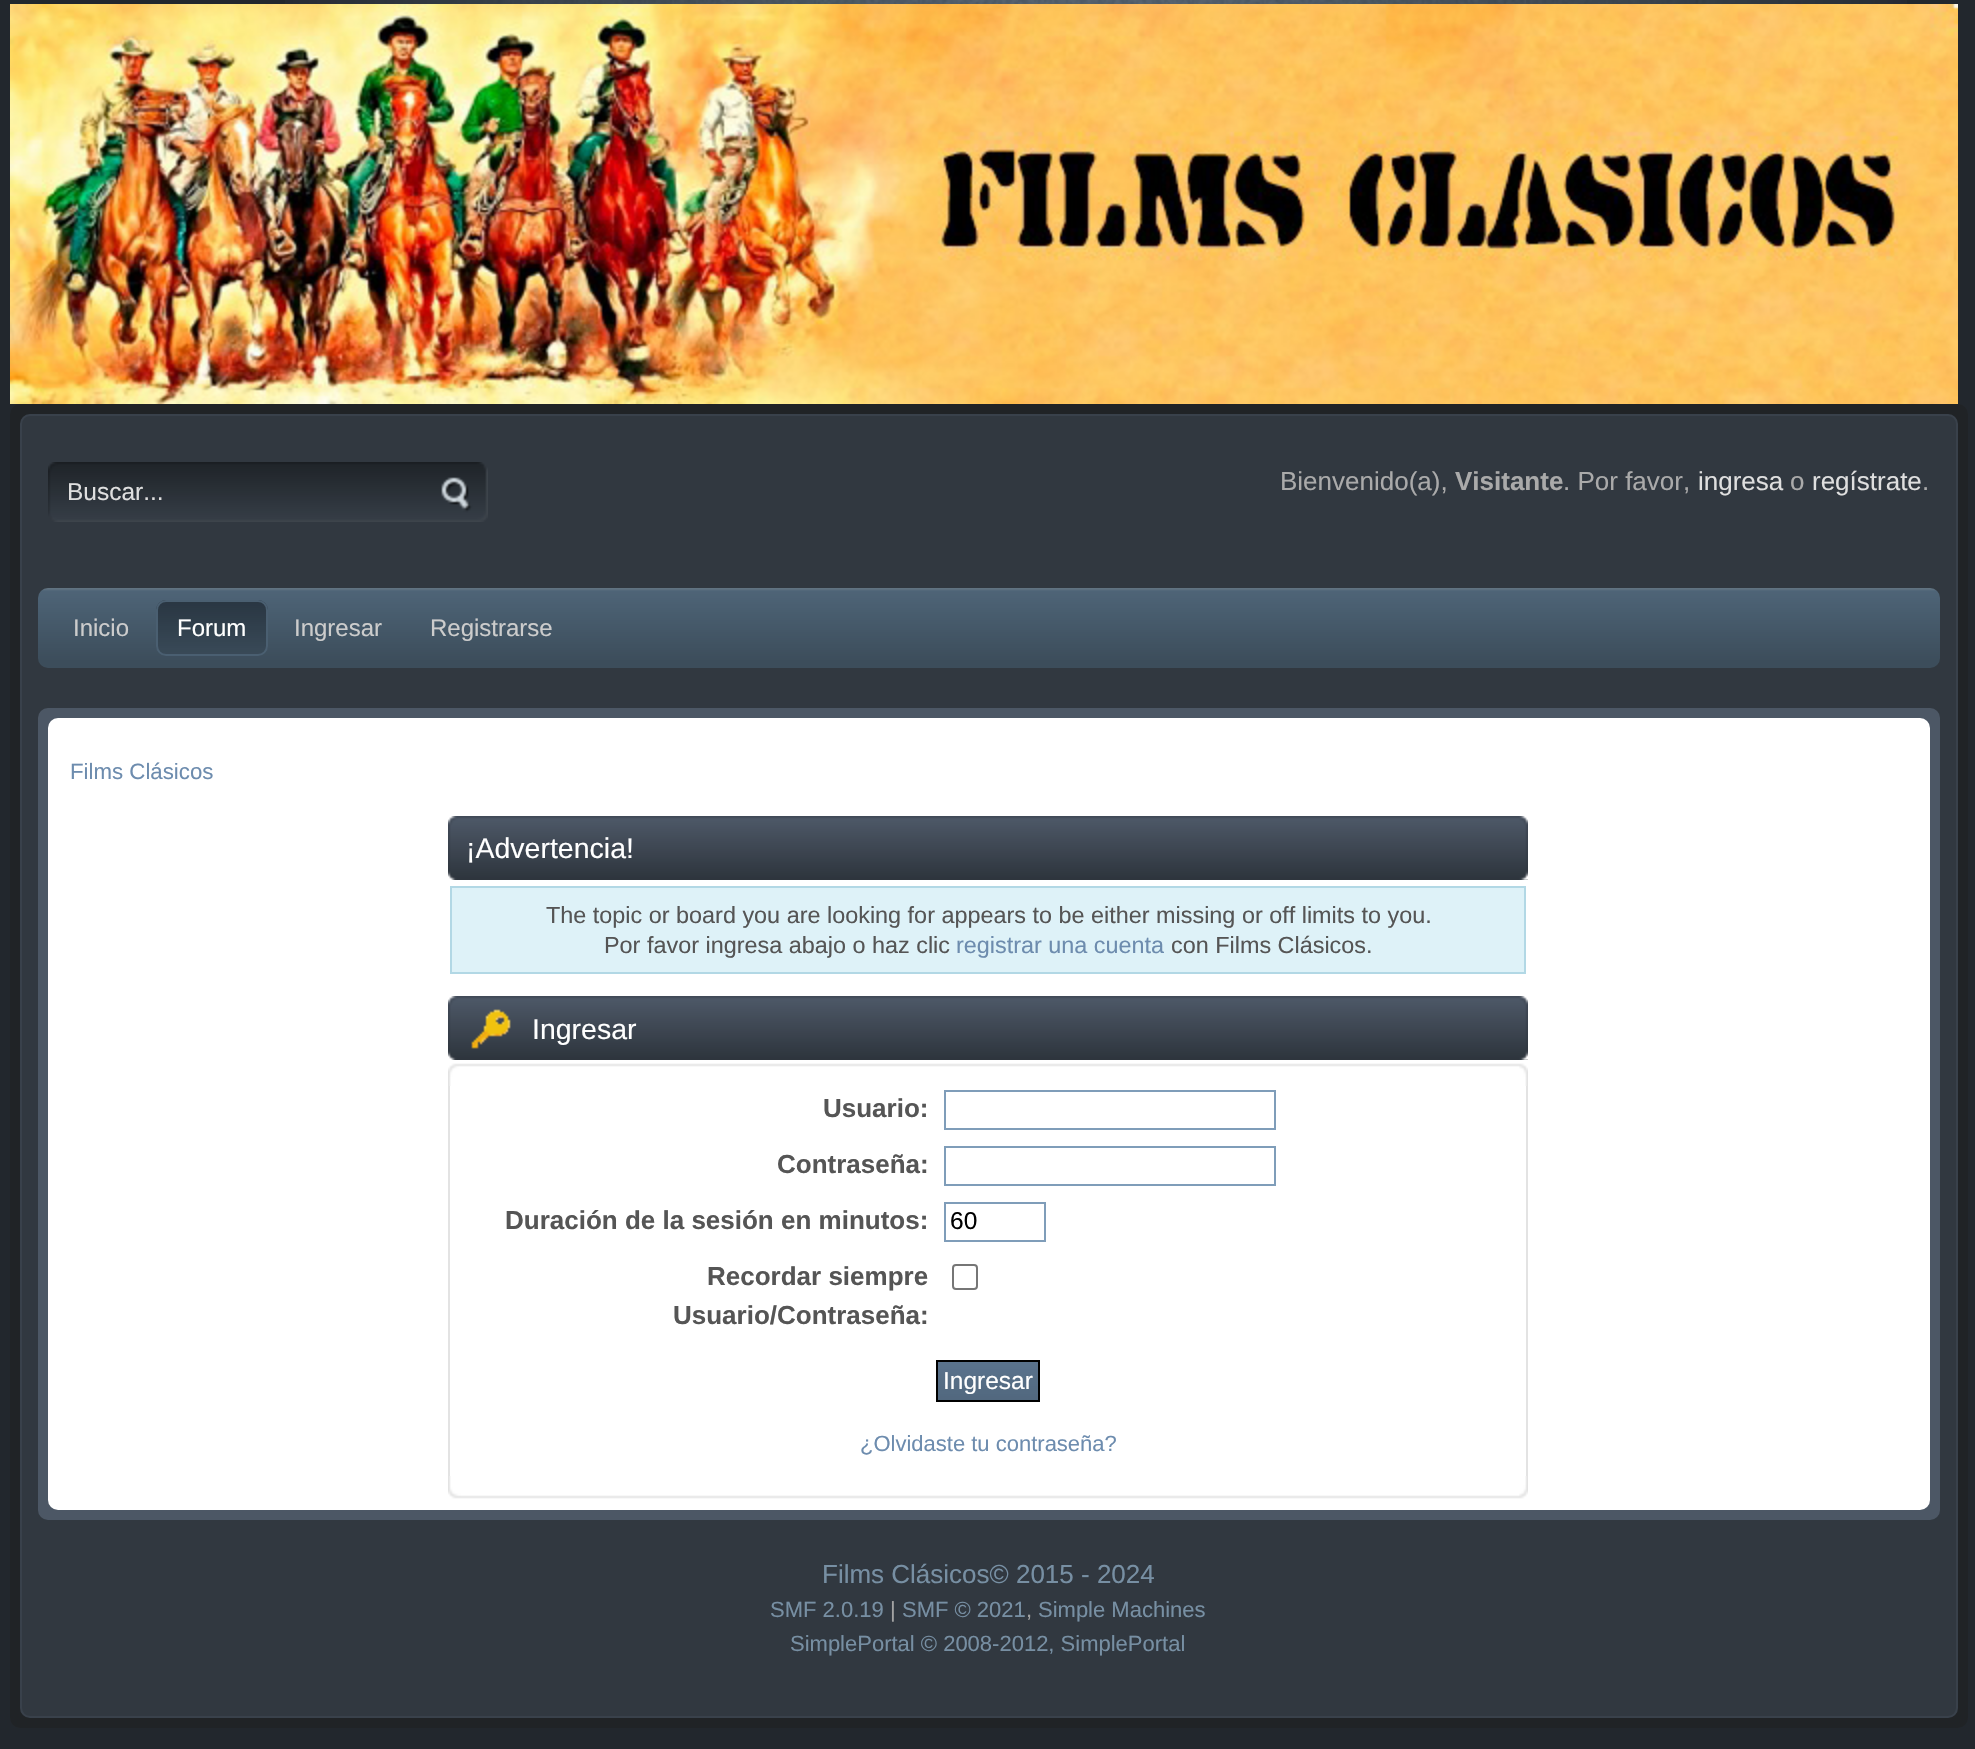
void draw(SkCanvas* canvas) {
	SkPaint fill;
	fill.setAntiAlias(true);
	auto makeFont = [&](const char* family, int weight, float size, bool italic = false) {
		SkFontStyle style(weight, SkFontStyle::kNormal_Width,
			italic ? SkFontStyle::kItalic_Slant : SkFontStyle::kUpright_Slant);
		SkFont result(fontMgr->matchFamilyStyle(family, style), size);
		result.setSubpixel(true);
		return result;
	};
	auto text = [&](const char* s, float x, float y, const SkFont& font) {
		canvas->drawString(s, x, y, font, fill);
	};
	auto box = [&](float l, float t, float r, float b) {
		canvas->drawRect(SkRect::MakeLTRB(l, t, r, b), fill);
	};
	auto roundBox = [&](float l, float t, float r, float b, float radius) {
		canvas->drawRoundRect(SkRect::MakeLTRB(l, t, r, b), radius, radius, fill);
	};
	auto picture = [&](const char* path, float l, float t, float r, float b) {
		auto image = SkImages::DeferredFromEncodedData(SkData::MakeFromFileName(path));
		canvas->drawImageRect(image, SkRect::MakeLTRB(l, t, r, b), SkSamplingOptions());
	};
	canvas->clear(0xFF22272D);
	picture("image0.png", 285, 0, 1907, 4);
	picture("image1.png", 10, 4, 1958, 404);
	fill.setColor(0xFF202326);
	roundBox(10, 404, 1968, 1728, 10);
	fill.setColor(0xFF313840);
	canvas->drawRoundRect(SkRect::MakeLTRB(21, 415, 1957, 1717), 9, 9, fill);
	fill.setStyle(SkPaint::kStroke_Style);
	fill.setStrokeWidth(2);
	fill.setColor(0xFF39414B);
	canvas->drawRoundRect(SkRect::MakeLTRB(21, 415, 1957, 1717), 9, 9, fill);
	picture("image2.png", 48, 462, 488, 522);
	picture("image3.png", 38, 588, 1940, 668);
	picture("image4.png", 156, 600, 268, 656);
	fill.setColor(0xFF4A5F71);
	canvas->drawRoundRect(SkRect::MakeLTRB(157, 601, 267, 655), 9, 9, fill);
	fill.setStyle(SkPaint::kFill_Style);
	fill.setColor(0xFF4C5765);
	roundBox(38, 708, 1940, 1520, 10);
	fill.setColor(0xFFFFFFFF);
	roundBox(48, 718, 1930, 1510, 10);
	picture("image5.png", 448, 816, 1528, 880);
	picture("image6.png", 1519, 816, 1528, 880);
	fill.setColor(0xFFDEF2F8);
	canvas->drawRect(SkRect::MakeLTRB(451, 887, 1525, 973), fill);
	fill.setStyle(SkPaint::kStroke_Style);
	fill.setColor(0xFFB2D8E5);
	canvas->drawRect(SkRect::MakeLTRB(451, 887, 1525, 973), fill);
	picture("image5.png", 448, 996, 1528, 1060);
	picture("image6.png", 1519, 996, 1528, 1060);
	picture("image7.png", 471, 1009, 511, 1049);
	picture("image8.png", 448, 1063, 1519, 1086);
	picture("image9.png", 1519, 1063, 1528, 1086);
	fill.setStyle(SkPaint::kFill_Style);
	fill.setColor(0xFFE3E3E3);
	box(1526, 1086, 1528, 1476);
	box(448, 1086, 450, 1476);
	fill.setStyle(SkPaint::kStroke_Style);
	fill.setColor(0xFF7F9DB9);
	canvas->drawRect(SkRect::MakeLTRB(945, 1091, 1275, 1129), fill);
	canvas->drawRect(SkRect::MakeLTRB(945, 1147, 1275, 1185), fill);
	canvas->drawRect(SkRect::MakeLTRB(945, 1203, 1045, 1241), fill);
	fill.setColor(0xFF767676);
	canvas->drawRoundRect(SkRect::MakeLTRB(953, 1265, 977, 1289), 3, 3, fill);
	picture("image10.png", 938, 1362, 1038, 1400);
	fill.setColor(0xFF000000);
	canvas->drawRect(SkRect::MakeLTRB(937, 1361, 1039, 1401), fill);
	picture("image11.png", 448, 1476, 1519, 1499);
	picture("image12.png", 1519, 1476, 1528, 1499);
	auto font1 = makeFont("Liberation Sans", 400, 24.5f);
	fill.setStyle(SkPaint::kFill_Style);
	fill.setColor(0xFFDFDFDF);
	text("Buscar...", 67, 500, font1);
	auto font2 = makeFont("Liberation Sans", 400, 26);
	fill.setColor(0xFFAAAAAA);
	text("Bienvenido(a),", 1280, 490, font2);
	auto font3 = makeFont("Liberation Sans", 700, 26);
	text("Visitante", 1455, 490, font3);
	text(". Por favor,", 1563, 490, font2);
	fill.setColor(0xFFDFDFDF);
	text("ingresa", 1698, 490, font2);
	fill.setColor(0xFFAAAAAA);
	text("o", 1790, 490, font2);
	fill.setColor(0xFFDFDFDF);
	text("regístrate", 1812, 490, font2);
	fill.setColor(0xFFAAAAAA);
	text(".", 1922, 490, font2);
	auto font4 = makeFont("Liberation Sans", 400, 24);
	fill.setColor(0xFFCCCCCC);
	text("Inicio", 73, 636, font4);
	fill.setColor(0xFFFFFFFF);
	text("Forum", 177, 636, font4);
	fill.setColor(0xFFCCCCCC);
	text("Ingresar", 294, 636, font4);
	text("Registrarse", 430, 636, font4);
	auto font5 = makeFont("Liberation Sans", 400, 22.25f);
	fill.setColor(0xFF6D8CAE);
	text("Films Clásicos", 70, 779, font5);
	auto font6 = makeFont("Liberation Sans", 400, 28.5f);
	fill.setColor(0xFFFFFFFF);
	text("¡Advertencia!", 466, 858, font6);
	auto font7 = makeFont("Liberation Sans", 400, 23.4f);
	fill.setColor(0xFF555555);
	text("The topic or board you are looking for appears to be either missing or off limits to you.", 546, 923, font7);
	text("Por favor ingresa abajo o haz clic", 604, 953, font7);
	fill.setColor(0xFF6D8CAE);
	text("registrar una cuenta", 956, 953, font7);
	fill.setColor(0xFF555555);
	text("con Films Clásicos.", 1171, 953, font7);
	fill.setColor(0xFFFFFFFF);
	text("Ingresar", 532, 1039, font6);
	fill.setColor(0xFF555555);
	text("Usuario:", 823, 1117, font3);
	text("Contraseña:", 777, 1173, font3);
	text("Duración de la sesión en minutos:", 505, 1229, font3);
	fill.setColor(0xFF000000);
	text("60", 950, 1229, font1);
	fill.setColor(0xFF555555);
	text("Recordar siempre", 707, 1285, font3);
	text("Usuario/Contraseña:", 673, 1324, font3);
	fill.setColor(0xFFFFFFFF);
	text("Ingresar", 943, 1389, font1);
	auto font8 = makeFont("Liberation Sans", 400, 22);
	fill.setColor(0xFF6D8CAE);
	text("¿Olvidaste tu contraseña?", 860, 1451, font8);
	fill.setColor(0xFF778FA3);
	text("Films Clásicos© 2015 - 2024", 822, 1583, font2);
	text("SMF 2.0.19", 770, 1617, font8);
	fill.setColor(0xFFA3A3A3);
	text("|", 890, 1617, font8);
	fill.setColor(0xFF778FA3);
	text("SMF © 2021", 902, 1617, font8);
	fill.setColor(0xFFA3A3A3);
	text(",", 1026, 1617, font8);
	fill.setColor(0xFF778FA3);
	text("Simple Machines", 1038, 1617, font8);
	text("SimplePortal © 2008-2012, SimplePortal", 790, 1651, font8);
}
